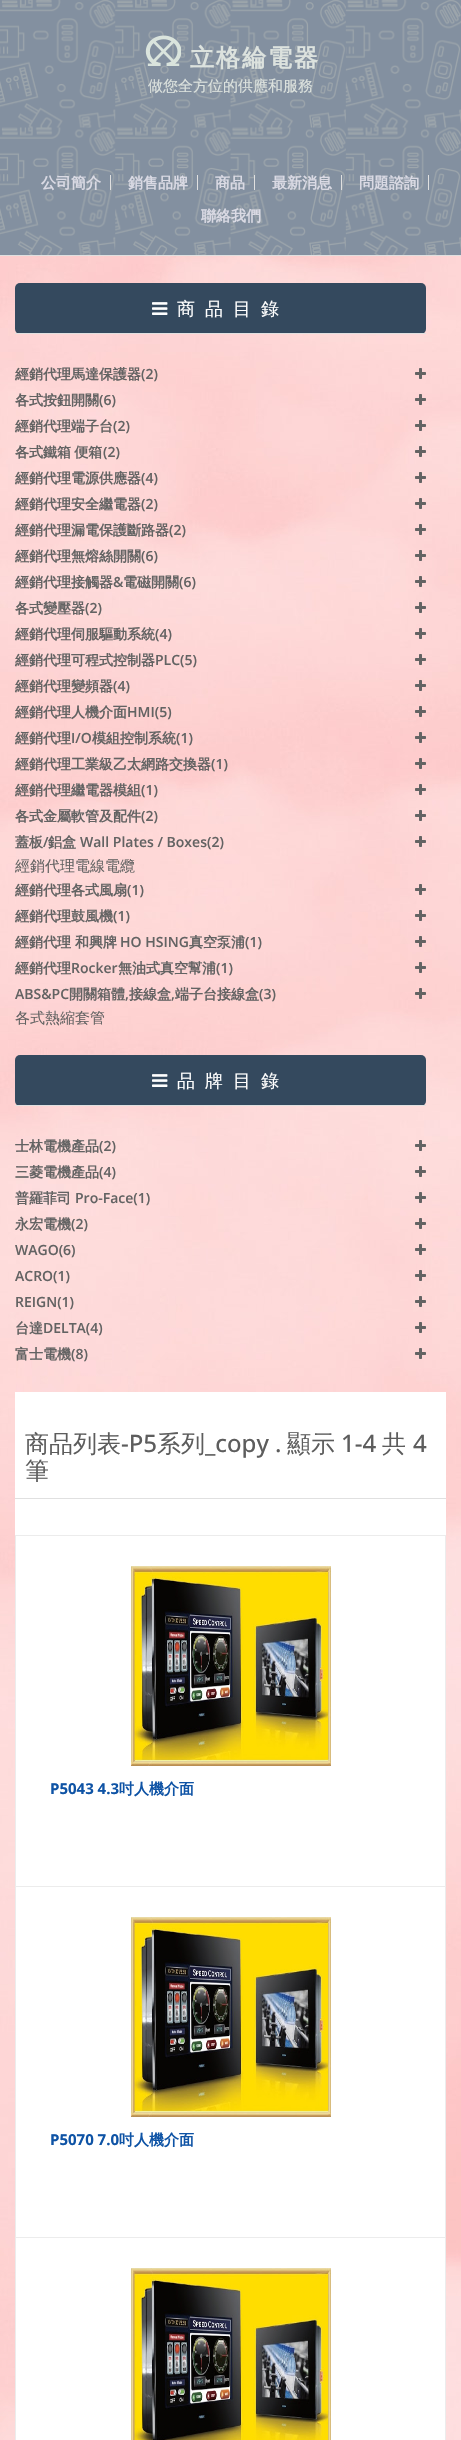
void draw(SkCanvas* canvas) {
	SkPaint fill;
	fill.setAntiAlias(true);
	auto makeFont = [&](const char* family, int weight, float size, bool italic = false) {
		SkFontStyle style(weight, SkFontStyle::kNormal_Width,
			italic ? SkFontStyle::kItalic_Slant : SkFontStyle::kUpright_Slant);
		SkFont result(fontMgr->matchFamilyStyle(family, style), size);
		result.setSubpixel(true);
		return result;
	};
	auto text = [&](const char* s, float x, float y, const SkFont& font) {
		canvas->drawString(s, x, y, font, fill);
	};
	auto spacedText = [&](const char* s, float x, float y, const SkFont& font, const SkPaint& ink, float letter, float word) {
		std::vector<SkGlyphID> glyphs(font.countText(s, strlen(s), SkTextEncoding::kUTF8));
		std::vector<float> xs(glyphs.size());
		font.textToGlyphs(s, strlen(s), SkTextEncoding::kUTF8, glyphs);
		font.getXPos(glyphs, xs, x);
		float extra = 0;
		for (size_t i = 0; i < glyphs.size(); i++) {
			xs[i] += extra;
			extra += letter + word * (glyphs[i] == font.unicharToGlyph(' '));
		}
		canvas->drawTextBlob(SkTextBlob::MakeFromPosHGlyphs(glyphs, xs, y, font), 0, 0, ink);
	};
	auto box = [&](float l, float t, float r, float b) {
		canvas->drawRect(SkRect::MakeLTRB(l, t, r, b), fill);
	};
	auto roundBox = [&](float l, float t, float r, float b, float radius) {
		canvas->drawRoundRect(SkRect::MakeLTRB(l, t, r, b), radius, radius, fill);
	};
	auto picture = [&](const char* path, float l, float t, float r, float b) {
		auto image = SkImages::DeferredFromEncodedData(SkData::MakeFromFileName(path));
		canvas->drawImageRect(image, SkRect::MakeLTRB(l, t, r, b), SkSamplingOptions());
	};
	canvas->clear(0xFFFFFFFF);
	picture("image0.png", 0, 0, 461, 255);
	fill.setColor(0xFFE0E0E0);
	box(0, 255, 461, 256);
	picture("image1.png", 145, 35, 181, 66);
	box(110, 175, 111, 190);
	box(197, 175, 198, 190);
	box(254, 175, 255, 190);
	box(341, 175, 342, 190);
	box(428, 175, 429, 190);
	picture("image2.png", 0, 256, 461, 2440);
	fill.setColor(0xFF34495E);
	roundBox(15, 283, 426, 334, 5);
	fill.setColor(0xFFE0E0E0);
	box(15, 333, 426, 334);
	picture("image3.png", 152, 302, 168, 315);
	picture("image4.png", 415, 368, 426, 379);
	picture("image5.png", 415, 394, 426, 405);
	picture("image6.png", 415, 420, 426, 431);
	picture("image7.png", 415, 446, 426, 457);
	picture("image8.png", 415, 472, 426, 483);
	picture("image9.png", 415, 498, 426, 509);
	picture("image10.png", 415, 524, 426, 535);
	picture("image11.png", 415, 550, 426, 561);
	picture("image12.png", 415, 576, 426, 587);
	picture("image13.png", 415, 602, 426, 613);
	picture("image14.png", 415, 628, 426, 639);
	picture("image15.png", 415, 654, 426, 665);
	picture("image16.png", 415, 680, 426, 691);
	picture("image17.png", 415, 706, 426, 717);
	picture("image18.png", 415, 732, 426, 743);
	picture("image19.png", 415, 758, 426, 769);
	picture("image20.png", 415, 784, 426, 795);
	picture("image21.png", 415, 810, 426, 821);
	picture("image22.png", 415, 836, 426, 847);
	picture("image23.png", 415, 884, 426, 895);
	picture("image24.png", 415, 910, 426, 921);
	picture("image25.png", 415, 936, 426, 947);
	picture("image26.png", 415, 962, 426, 973);
	picture("image27.png", 415, 988, 426, 999);
	fill.setColor(0xFF34495E);
	roundBox(15, 1055, 426, 1106, 5);
	fill.setColor(0xFFE0E0E0);
	box(15, 1105, 426, 1106);
	picture("image3.png", 152, 1074, 168, 1087);
	picture("image28.png", 415, 1140, 426, 1151);
	picture("image29.png", 415, 1166, 426, 1177);
	picture("image30.png", 415, 1192, 426, 1203);
	picture("image31.png", 415, 1218, 426, 1229);
	picture("image32.png", 415, 1244, 426, 1255);
	picture("image33.png", 415, 1270, 426, 1281);
	picture("image34.png", 415, 1296, 426, 1307);
	picture("image35.png", 415, 1322, 426, 1333);
	picture("image36.png", 415, 1348, 426, 1359);
	fill.setColor(0xFFFFFFFF);
	box(15, 1392, 446, 2440);
	fill.setColor(0xFFE0E0E0);
	box(15, 1498, 446, 1499);
	fill.setColor(0xFFECECEC);
	box(15, 1535, 446, 1536);
	box(15, 1535, 16, 2440);
	box(445, 1536, 446, 2440);
	box(16, 1886, 446, 1887);
	picture("image37.png", 131, 1566, 331, 1766);
	box(16, 2237, 446, 2238);
	picture("image38.png", 131, 1917, 331, 2117);
	picture("image39.png", 131, 2268, 331, 2440);
	auto font1 = makeFont("WenQuanYi Zen Hei", 700, 24);
	fill.setColor(0xFFDCE2DE);
	spacedText("立格綸電器", 190, 66, font1, fill, 2, 0);
	auto font2 = makeFont("WenQuanYi Zen Hei", 500, 15);
	text("做您全方位的供應和服務", 148, 91, font2);
	auto font3 = makeFont("WenQuanYi Zen Hei", 700, 15);
	fill.setColor(0xFFDADAE4);
	text("公司簡介", 41, 188, font3);
	text("銷售品牌", 128, 188, font3);
	text("商品", 215, 188, font3);
	text("最新消息", 272, 188, font3);
	text("問題諮詢", 359, 188, font3);
	text("聯絡我們", 201, 221, font3);
	auto font4 = makeFont("WenQuanYi Zen Hei", 500, 18);
	fill.setColor(0xFFFFFFFF);
	spacedText("商品目錄", 177, 315, font4, fill, 10, 0);
	auto font5 = makeFont("WenQuanYi Zen Hei", 700, 14);
	fill.setColor(0xFF636363);
	text("經銷代理馬達保護器", 15, 379, font5);
	auto font6 = makeFont("Open Sans", 600, 14);
	text("(2)", 141, 379, font6);
	text("各式按鈕開關", 15, 405, font5);
	text("(6)", 99, 405, font6);
	text("經銷代理端子台", 15, 431, font5);
	text("(2)", 113, 431, font6);
	spacedText("各式鐵箱 便箱", 15, 457, font5, fill, 0, -1);
	text("(2)", 103, 457, font6);
	text("經銷代理電源供應器", 15, 483, font5);
	text("(4)", 141, 483, font6);
	text("經銷代理安全繼電器", 15, 509, font5);
	text("(2)", 141, 509, font6);
	text("經銷代理漏電保護斷路器", 15, 535, font5);
	text("(2)", 169, 535, font6);
	text("經銷代理無熔絲開關", 15, 561, font5);
	text("(6)", 141, 561, font6);
	text("經銷代理接觸器", 15, 587, font5);
	text("&", 113, 587, font6);
	text("電磁開關", 123, 587, font5);
	text("(6)", 179, 587, font6);
	text("各式變壓器", 15, 613, font5);
	text("(2)", 85, 613, font6);
	text("經銷代理伺服驅動系統", 15, 639, font5);
	text("(4)", 155, 639, font6);
	text("經銷代理可程式控制器", 15, 665, font5);
	text("PLC(5)", 155, 665, font6);
	text("經銷代理變頻器", 15, 691, font5);
	text("(4)", 113, 691, font6);
	text("經銷代理人機介面", 15, 717, font5);
	text("HMI(5)", 127, 717, font6);
	text("經銷代理", 15, 743, font5);
	text("I/O", 71, 743, font6);
	text("模組控制系統", 92, 743, font5);
	text("(1)", 176, 743, font6);
	text("經銷代理工業級乙太網路交換器", 15, 769, font5);
	text("(1)", 211, 769, font6);
	text("經銷代理繼電器模組", 15, 795, font5);
	text("(1)", 141, 795, font6);
	text("各式金屬軟管及配件", 15, 821, font5);
	text("(2)", 141, 821, font6);
	text("蓋板", 15, 847, font5);
	text("/", 43, 847, font6);
	text("鋁盒", 48, 847, font5);
	text("Wall Plates / Boxes(2)", 80, 847, font6);
	text("經銷代理電線電纜", 15, 871, font2);
	text("經銷代理各式風扇", 15, 895, font5);
	text("(1)", 127, 895, font6);
	text("經銷代理鼓風機", 15, 921, font5);
	text("(1)", 113, 921, font6);
	text("經銷代理", 15, 947, font5);
	text("和興牌", 75, 947, font5);
	text("HO HSING", 120, 947, font6);
	text("真空泵浦", 189, 947, font5);
	text("(1)", 245, 947, font6);
	text("經銷代理", 15, 973, font5);
	text("Rocker", 71, 973, font6);
	text("無油式真空幫浦", 118, 973, font5);
	text("(1)", 216, 973, font6);
	text("ABS&PC", 15, 999, font6);
	text("開關箱體", 69, 999, font5);
	text(",", 125, 999, font6);
	text("接線盒", 129, 999, font5);
	text(",", 171, 999, font6);
	text("端子台接線盒", 175, 999, font5);
	text("(3)", 259, 999, font6);
	text("各式熱縮套管", 15, 1023, font2);
	fill.setColor(0xFFFFFFFF);
	spacedText("品牌目錄", 177, 1087, font4, fill, 10, 0);
	fill.setColor(0xFF636363);
	text("士林電機產品", 15, 1151, font5);
	text("(2)", 99, 1151, font6);
	text("三菱電機產品", 15, 1177, font5);
	text("(4)", 99, 1177, font6);
	text("普羅菲司", 15, 1203, font5);
	text("Pro-Face(1)", 75, 1203, font6);
	text("永宏電機", 15, 1229, font5);
	text("(2)", 71, 1229, font6);
	text("WAGO(6)", 15, 1255, font6);
	text("ACRO(1)", 15, 1281, font6);
	text("REIGN(1)", 15, 1307, font6);
	text("台達", 15, 1333, font5);
	text("DELTA(4)", 43, 1333, font6);
	text("富士電機", 15, 1359, font5);
	text("(8)", 71, 1359, font6);
	auto font7 = makeFont("WenQuanYi Zen Hei", 500, 24);
	fill.setColor(0xFF5D5D5D);
	text("商品列表", 25, 1452, font7);
	auto font8 = makeFont("Open Sans", 500, 24);
	text("-P5", 121, 1452, font8);
	text("系列", 157, 1452, font7);
	text("_copy .", 205, 1452, font8);
	text("顯示", 287, 1452, font7);
	text("1-4", 341, 1452, font8);
	text("共", 382, 1452, font7);
	text("4", 413, 1452, font8);
	text("筆", 25, 1479, font7);
	auto font9 = makeFont("Open Sans", 700, 15);
	fill.setColor(0xFF0E53A5);
	text("P5043 4.3", 50, 1794, font9);
	text("吋人機介面", 119, 1794, font3);
	text("P5070 7.0", 50, 2145, font9);
	text("吋人機介面", 119, 2145, font3);
}
